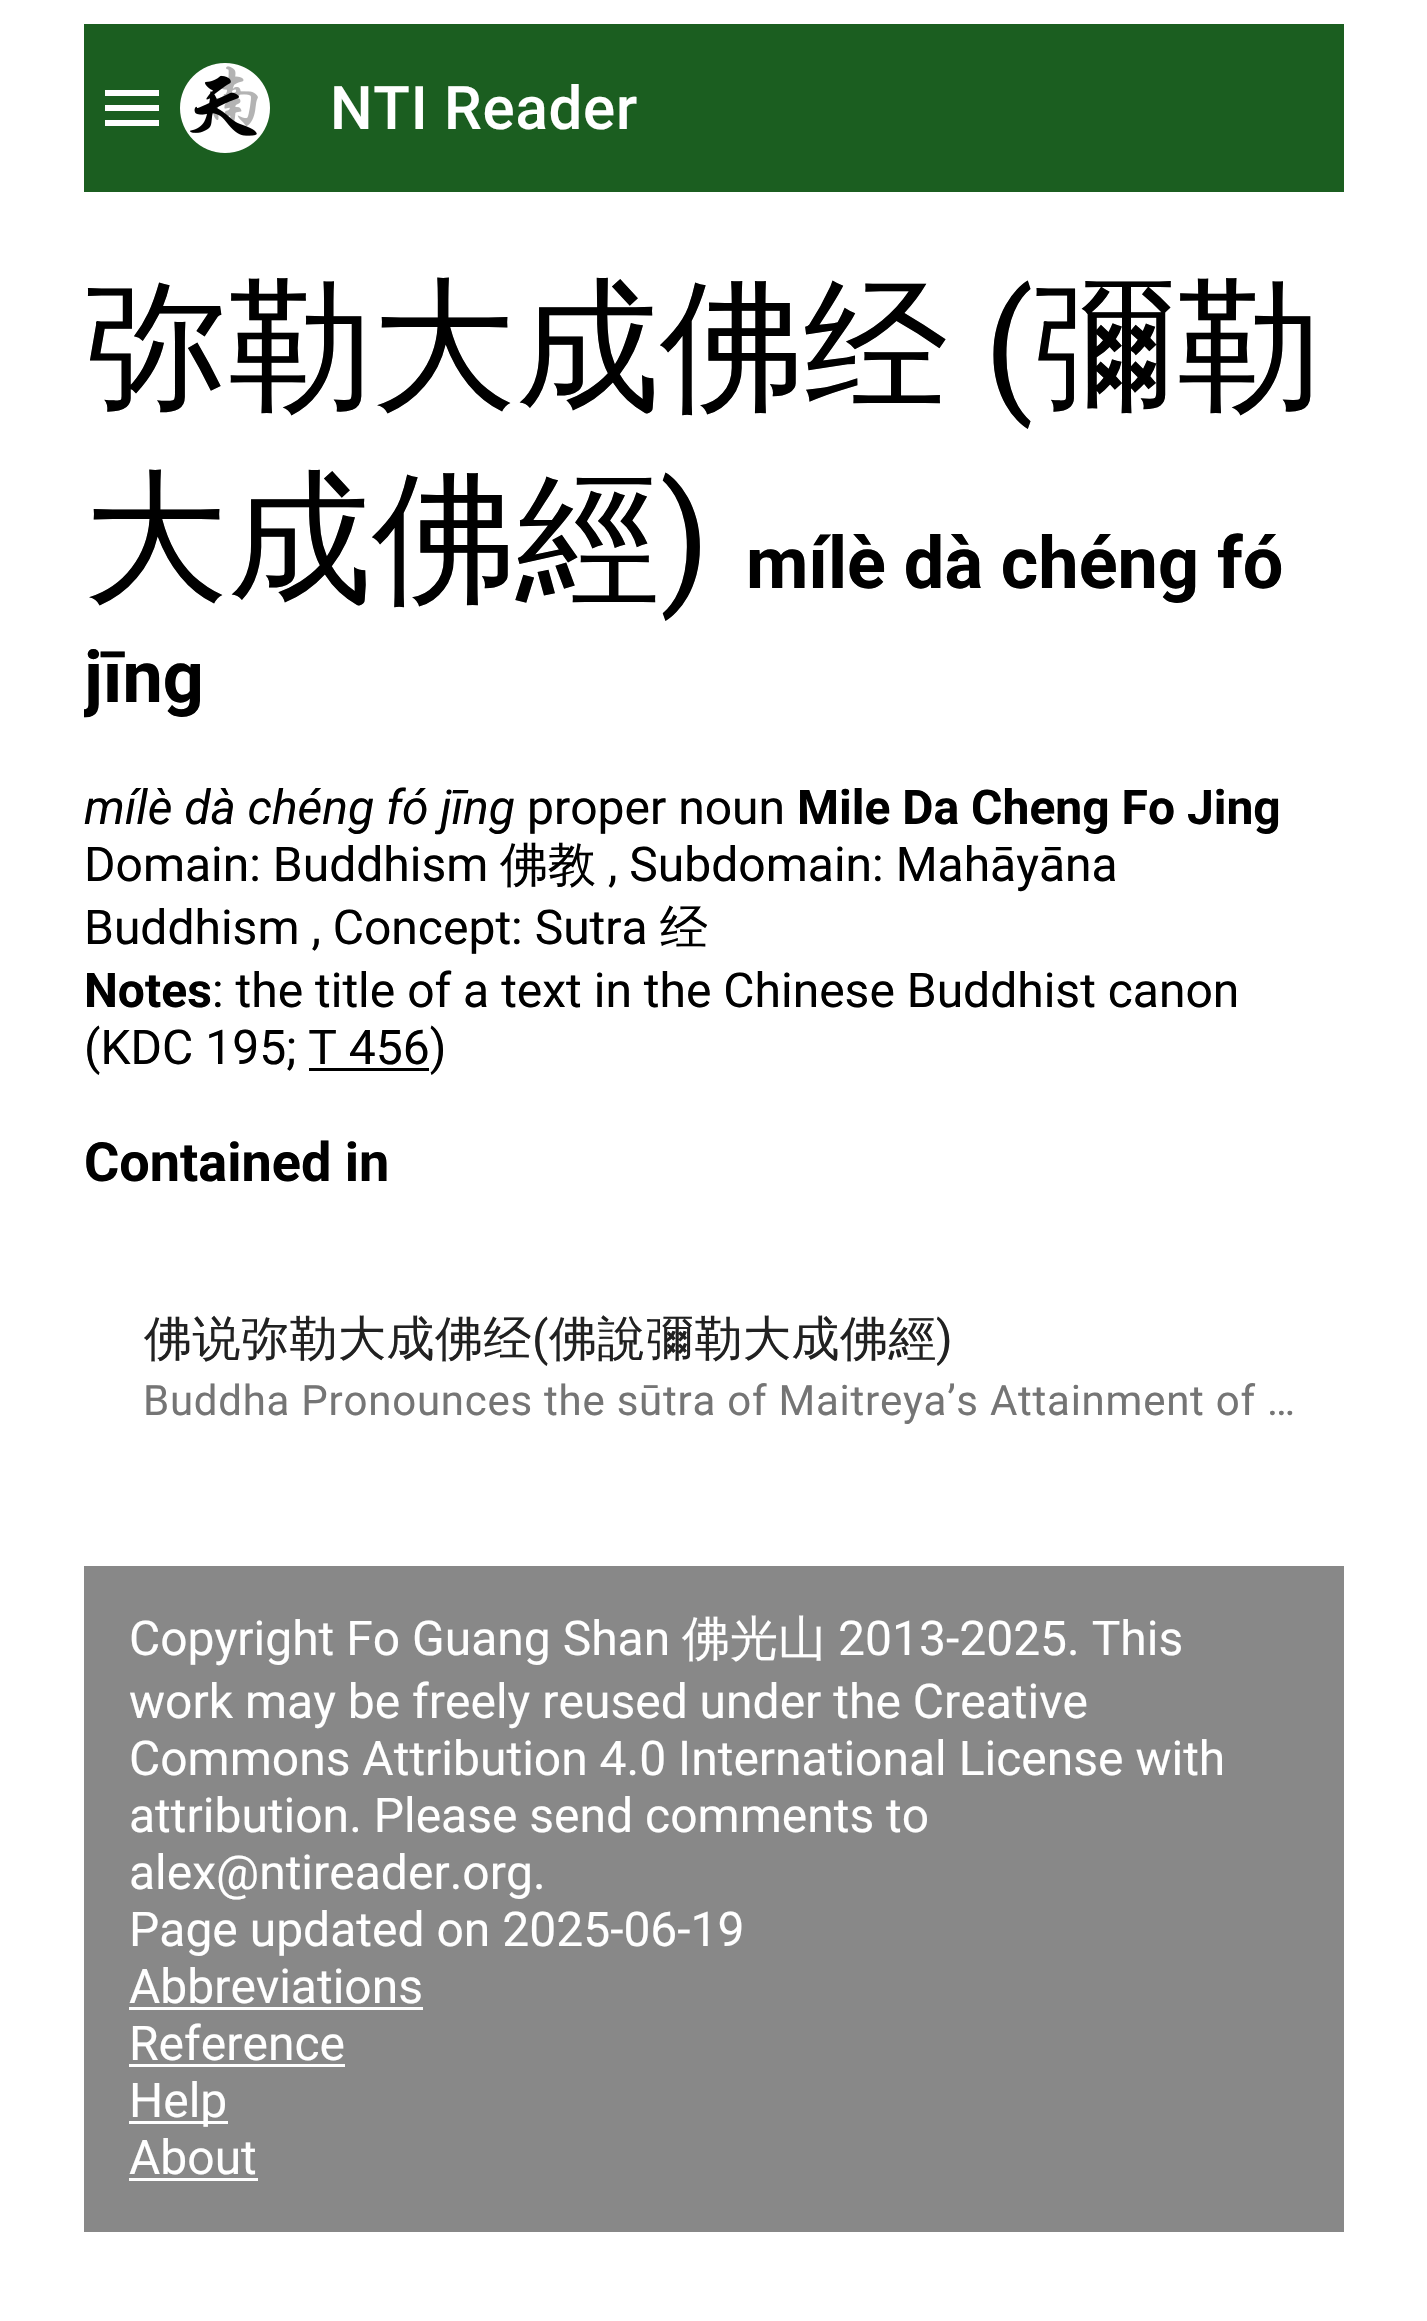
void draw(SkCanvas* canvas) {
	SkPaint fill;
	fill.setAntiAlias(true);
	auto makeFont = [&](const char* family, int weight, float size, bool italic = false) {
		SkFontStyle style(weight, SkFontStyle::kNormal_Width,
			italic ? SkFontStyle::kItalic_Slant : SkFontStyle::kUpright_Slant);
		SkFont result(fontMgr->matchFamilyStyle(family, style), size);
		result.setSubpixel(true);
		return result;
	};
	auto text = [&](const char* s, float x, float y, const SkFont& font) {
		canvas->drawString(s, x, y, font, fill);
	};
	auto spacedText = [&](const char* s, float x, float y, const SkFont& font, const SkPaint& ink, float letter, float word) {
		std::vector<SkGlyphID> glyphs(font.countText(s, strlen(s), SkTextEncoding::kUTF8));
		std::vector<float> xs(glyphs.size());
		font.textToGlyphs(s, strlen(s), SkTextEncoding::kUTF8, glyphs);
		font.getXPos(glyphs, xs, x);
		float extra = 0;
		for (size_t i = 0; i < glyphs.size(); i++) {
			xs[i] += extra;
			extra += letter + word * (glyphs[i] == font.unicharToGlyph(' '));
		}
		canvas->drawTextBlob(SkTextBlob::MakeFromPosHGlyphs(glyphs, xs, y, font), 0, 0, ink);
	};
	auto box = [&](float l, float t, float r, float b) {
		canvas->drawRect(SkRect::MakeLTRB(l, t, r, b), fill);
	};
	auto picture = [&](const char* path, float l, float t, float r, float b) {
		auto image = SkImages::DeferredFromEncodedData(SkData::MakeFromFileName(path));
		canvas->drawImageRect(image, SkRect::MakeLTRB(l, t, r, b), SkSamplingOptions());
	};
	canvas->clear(0xFFFFFFFF);
	fill.setColor(0xFF1B5E20);
	box(84, 24, 1344, 192);
	fill.setColor(0xFFFFFFFF);
	canvas->drawPath(SkPathBuilder().moveTo(105, 90).lineTo(159, 90).lineTo(159, 96).lineTo(105, 96).close().moveTo(105, 111).lineTo(105, 105).lineTo(159, 105).lineTo(159, 111).close().moveTo(105, 126).lineTo(105, 120).lineTo(159, 120).lineTo(159, 126).close().detach(), fill);
	picture("image0.png", 180, 63, 270, 153);
	fill.setColor(0xFF000000);
	box(309, 1068, 429, 1071);
	fill.setColor(0xFF888888);
	box(84, 1566, 1344, 2232);
	fill.setColor(0xFFFFFFFF);
	box(129, 2007, 423, 2010);
	box(129, 2064, 345, 2067);
	box(129, 2121, 228, 2124);
	box(129, 2178, 258, 2181);
	auto font1 = makeFont("Roboto", 500, 60);
	spacedText("NTI Reader", 330, 129, font1, fill, 0.75f, 0);
	auto font2 = makeFont("WenQuanYi Zen Hei", 500, 144);
	fill.setColor(0xFF000000);
	text("弥勒大成佛经", 84, 396, font2);
	auto font3 = makeFont("Roboto", 400, 144);
	text("(", 984, 396, font3);
	text("彌勒", 1033, 396, font2);
	text("大成佛經", 84, 588, font2);
	text(")", 660, 588, font3);
	auto font4 = makeFont("Roboto", 700, 72);
	text("mílè dà chéng fó", 746, 588, font4);
	canvas->save();
	canvas->clipRect(SkRect::MakeLTRB(84, 24, 1344, 1536));
	text("jīng", 84, 702, font4);
	canvas->restore();
	auto font5 = makeFont("Roboto", 400, 48, true);
	text("mílè dà chéng fó jīng", 84, 824, font5);
	auto font6 = makeFont("Roboto", 400, 48);
	text("proper noun", 527, 824, font6);
	auto font7 = makeFont("Roboto", 700, 48);
	text("Mile Da Cheng Fo Jing", 797, 824, font7);
	text("Domain: Buddhism", 84, 881, font6);
	auto font8 = makeFont("WenQuanYi Zen Hei", 500, 48);
	text("佛教", 500, 881, font8);
	text(", Subdomain: Mahāyāna", 608, 881, font6);
	text("Buddhism , Concept: Sutra", 84, 944, font6);
	text("经", 660, 944, font8);
	text("Notes", 84, 1007, font7);
	text(": the title of a text in the Chinese Buddhist canon", 212, 1007, font6);
	text("(KDC 195; T 456)", 84, 1064, font6);
	auto font9 = makeFont("Roboto", 700, 54);
	text("Contained in", 84, 1181, font9);
	fill.setColor(0xFF212121);
	spacedText("佛说弥勒大成佛经", 144, 1355, font8, fill, 0.5f, 0);
	spacedText("(", 532, 1355, font6, fill, 0.5f, 0);
	spacedText("佛說彌勒大成佛經", 549, 1355, font8, fill, 0.5f, 0);
	spacedText(")", 936, 1355, font6, fill, 0.5f, 0);
	auto font10 = makeFont("Roboto", 400, 42);
	fill.setColor(0xFF757575);
	spacedText("Buddha Pronounces the sūtra of Maitreya’s Attainment of …", 143, 1415, font10, fill, 0.75f, 0);
	fill.setColor(0xFFFFFFFF);
	text("Copyright Fo Guang Shan", 129, 1655, font6);
	text("佛光山", 682, 1655, font8);
	text("2013-2025. This", 838, 1655, font6);
	text("work may be freely reused under the Creative", 129, 1718, font6);
	text("Commons Attribution 4.0 International License with", 129, 1775, font6);
	text("attribution. Please send comments to", 129, 1832, font6);
	text("alex@ntireader.org.", 129, 1889, font6);
	text("Page updated on 2025-06-19", 129, 1946, font6);
	text("Abbreviations", 129, 2003, font6);
	text("Reference", 129, 2060, font6);
	text("Help", 129, 2117, font6);
	text("About", 129, 2174, font6);
}
